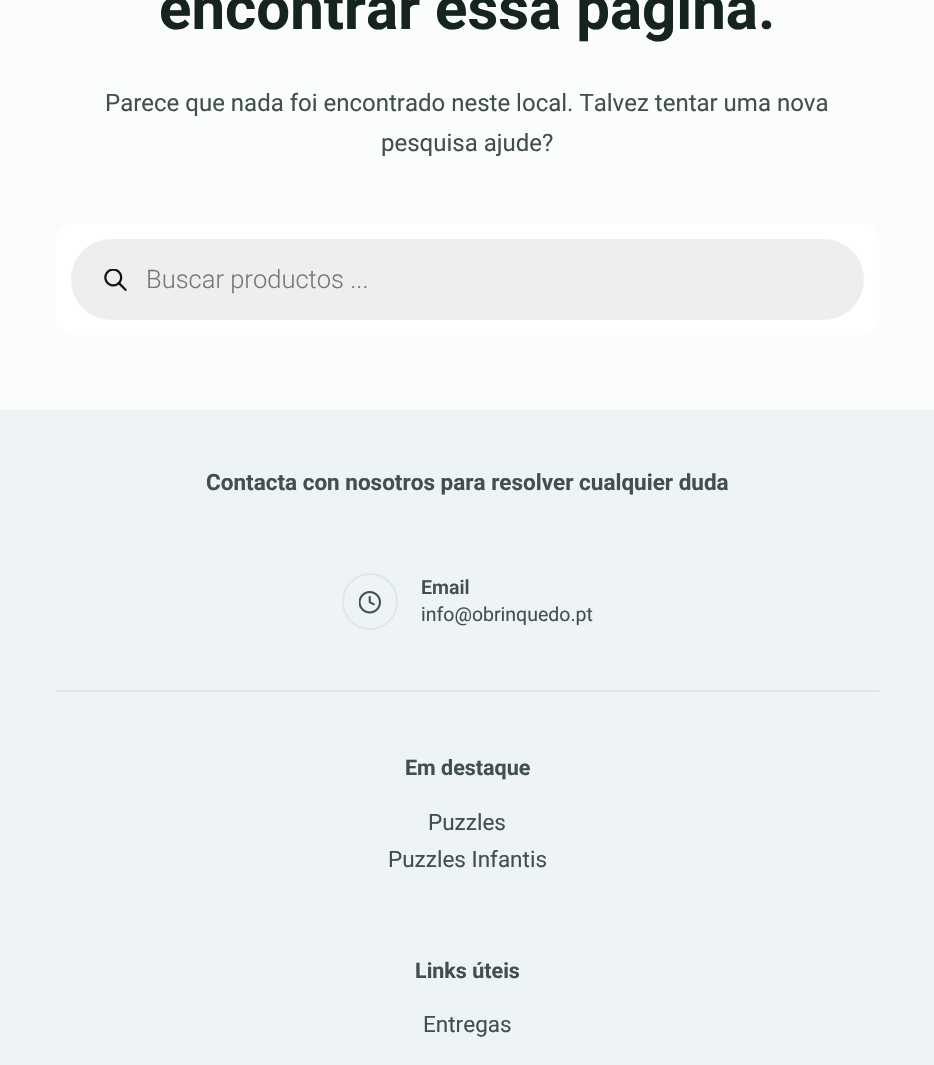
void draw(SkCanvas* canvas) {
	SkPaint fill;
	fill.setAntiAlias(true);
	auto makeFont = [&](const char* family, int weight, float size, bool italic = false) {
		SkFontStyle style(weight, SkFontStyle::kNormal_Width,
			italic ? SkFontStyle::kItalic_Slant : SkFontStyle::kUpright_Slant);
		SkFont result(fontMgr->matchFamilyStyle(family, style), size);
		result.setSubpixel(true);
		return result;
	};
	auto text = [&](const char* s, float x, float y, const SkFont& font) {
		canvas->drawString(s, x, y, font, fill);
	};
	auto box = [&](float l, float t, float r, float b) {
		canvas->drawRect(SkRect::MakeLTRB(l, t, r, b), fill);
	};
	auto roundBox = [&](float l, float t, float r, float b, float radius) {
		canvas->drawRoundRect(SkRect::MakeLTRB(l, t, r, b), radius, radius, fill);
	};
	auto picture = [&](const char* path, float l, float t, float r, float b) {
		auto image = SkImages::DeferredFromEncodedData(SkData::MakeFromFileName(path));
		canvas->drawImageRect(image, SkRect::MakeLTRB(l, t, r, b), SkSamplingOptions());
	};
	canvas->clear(0xFFFBFCFC);
	fill.setColor(0xFFFFFFFF);
	roundBox(56, 224, 879, 335, 15);
	fill.setColor(0xFFEEEEEE);
	roundBox(71, 239, 864, 320, 40.5f);
	picture("image0.png", 104, 269, 127, 291);
	fill.setColor(0xFFEEF4F5);
	box(0, 410, 934, 1065);
	fill.setColor(0xFFDFE7E9);
	box(56, 690, 879, 692);
	fill.setStyle(SkPaint::kStroke_Style);
	fill.setStrokeWidth(2);
	canvas->drawRoundRect(SkRect::MakeLTRB(343, 574, 397, 629), 27, 27, fill);
	picture("image1.png", 359, 591, 381, 614);
	auto font1 = makeFont("Roboto", 700, 60);
	fill.setStyle(SkPaint::kFill_Style);
	fill.setColor(0xFF152420);
	text("encontrar essa página.", 159, 29, font1);
	auto font2 = makeFont("Roboto", 400, 24);
	fill.setColor(0xFF42504B);
	text("Parece que nada foi encontrado neste local. Talvez tentar uma nova", 105, 111, font2);
	text("pesquisa ajude?", 381, 151, font2);
	auto font3 = makeFont("Roboto", 300, 25.5f);
	fill.setColor(0xFF777777);
	text("Buscar productos ...", 146, 288, font3);
	auto font4 = makeFont("Roboto", 700, 22.5f);
	fill.setColor(0xFF42504B);
	text("Contacta con nosotros para resolver cualquier duda", 206, 490, font4);
	auto font5 = makeFont("Roboto", 600, 19.5f);
	text("Email", 421, 594, font5);
	auto font6 = makeFont("Roboto", 400, 19.5f);
	text("info@obrinquedo.pt", 421, 621, font6);
	auto font7 = makeFont("Roboto", 700, 21.5f);
	text("Em destaque", 405, 775, font7);
	auto font8 = makeFont("Roboto", 400, 22.5f);
	text("Puzzles", 428, 830, font8);
	text("Puzzles Infantis", 388, 867, font8);
	text("Links úteis", 415, 978, font7);
	text("Entregas", 423, 1032, font8);
}
